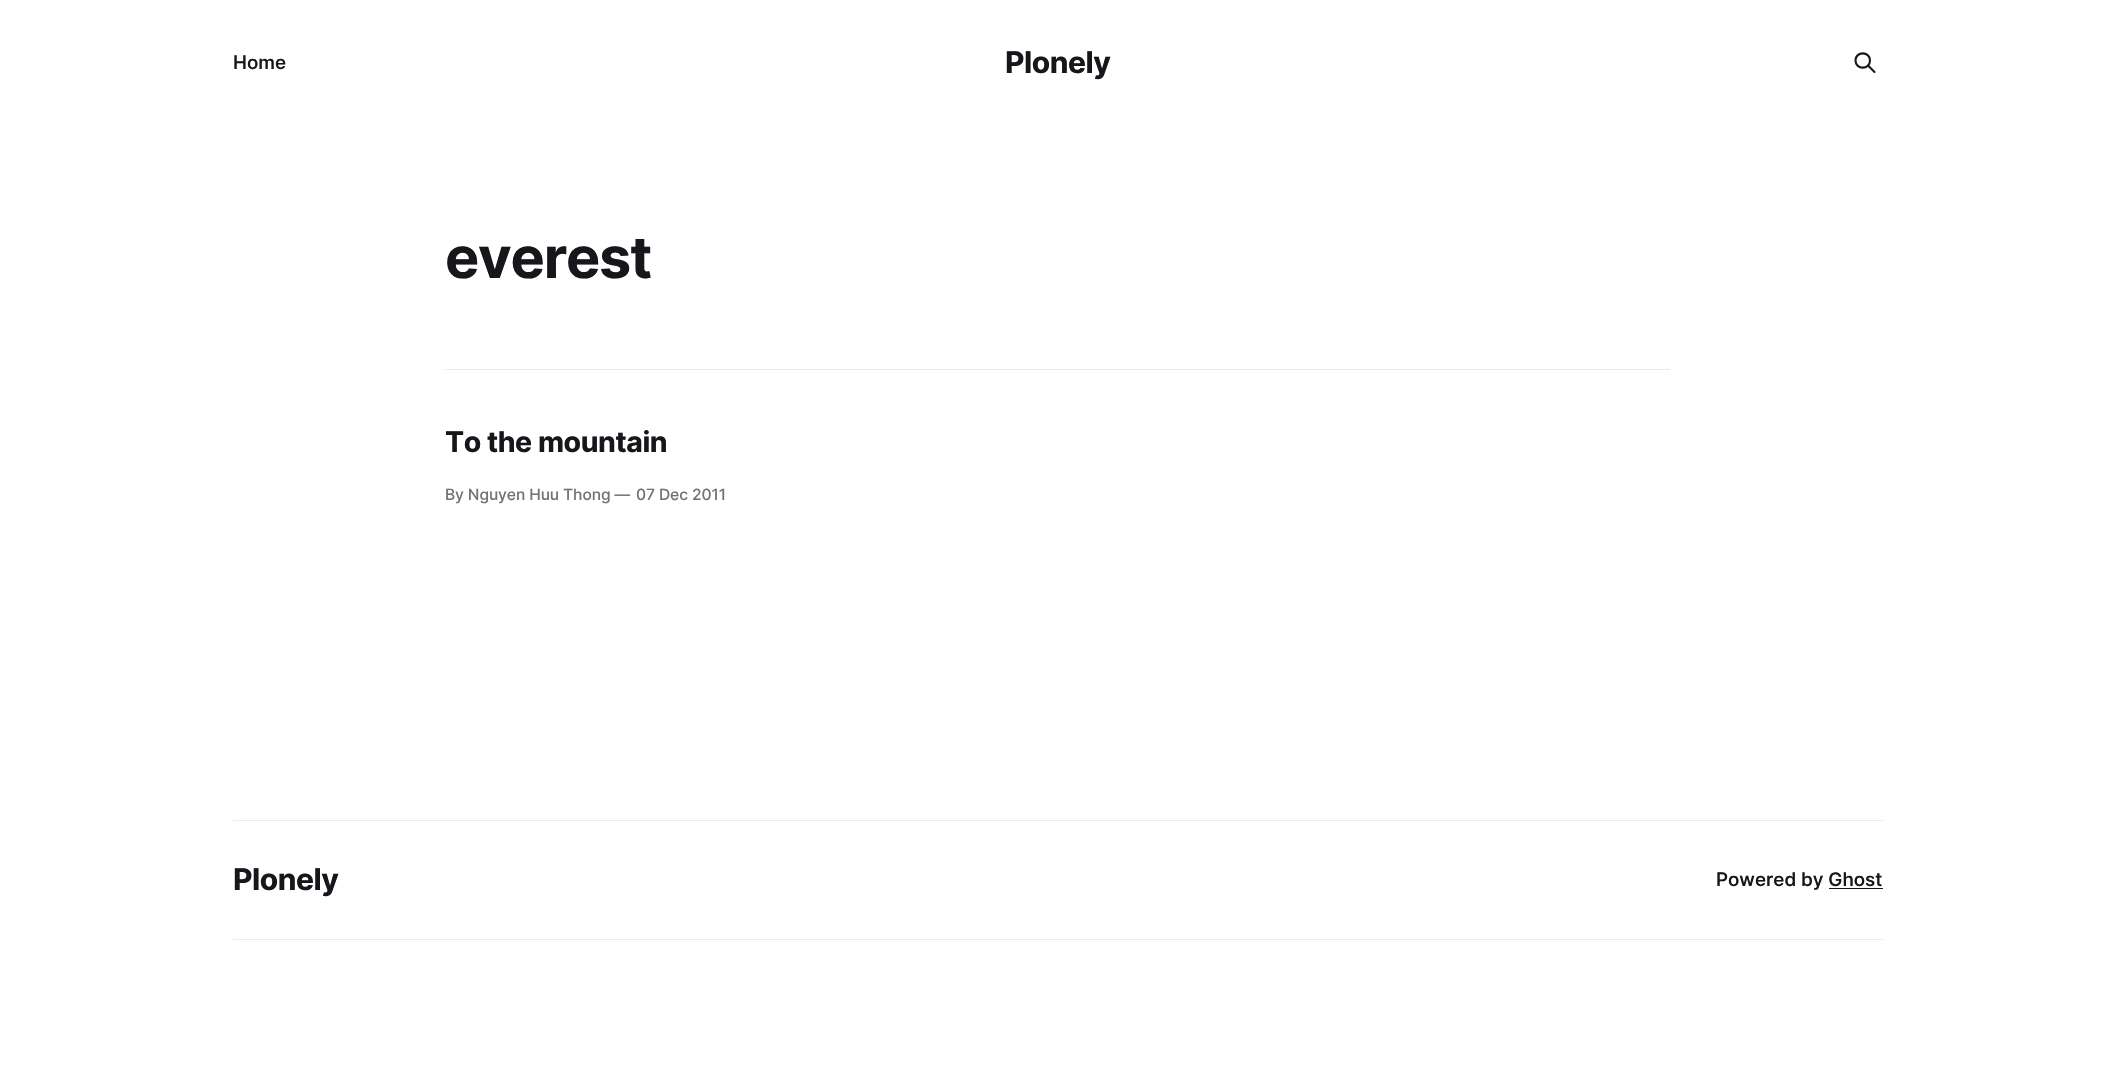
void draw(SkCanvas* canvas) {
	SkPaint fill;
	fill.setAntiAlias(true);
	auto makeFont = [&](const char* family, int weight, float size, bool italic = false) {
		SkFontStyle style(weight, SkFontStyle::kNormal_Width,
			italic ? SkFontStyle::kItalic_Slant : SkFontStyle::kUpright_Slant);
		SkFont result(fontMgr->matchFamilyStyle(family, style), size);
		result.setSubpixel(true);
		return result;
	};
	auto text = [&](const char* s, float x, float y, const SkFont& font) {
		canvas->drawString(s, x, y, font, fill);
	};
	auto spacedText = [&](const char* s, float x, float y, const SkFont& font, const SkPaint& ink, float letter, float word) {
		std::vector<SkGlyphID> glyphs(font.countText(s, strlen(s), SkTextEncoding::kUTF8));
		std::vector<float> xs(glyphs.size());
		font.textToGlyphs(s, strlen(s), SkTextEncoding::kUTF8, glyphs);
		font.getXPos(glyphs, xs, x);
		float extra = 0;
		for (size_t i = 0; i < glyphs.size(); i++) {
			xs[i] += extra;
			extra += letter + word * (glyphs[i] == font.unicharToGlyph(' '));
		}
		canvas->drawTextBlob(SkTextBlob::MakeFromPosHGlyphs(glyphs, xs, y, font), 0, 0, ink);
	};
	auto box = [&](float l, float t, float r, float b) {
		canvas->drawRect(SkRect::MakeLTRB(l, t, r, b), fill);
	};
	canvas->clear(0xFFFFFFFF);
	fill.setStyle(SkPaint::kStroke_Style);
	fill.setStrokeWidth(2.1f);
	fill.setStrokeCap(SkPaint::kRound_Cap);
	fill.setStrokeJoin(SkPaint::kRound_Join);
	fill.setColor(0xFF15171A);
	canvas->drawPath(SkPathBuilder().moveTo(1874.5f, 72).lineTo(1868, 65.5f).moveTo(1870, 60.5f).cubicTo(1870, 70, 1855.5f, 70, 1855.5f, 60.5f).cubicTo(1855.5f, 51, 1870, 51, 1870, 60.5f).close().detach(), fill);
	fill.setStyle(SkPaint::kFill_Style);
	fill.setColor(0xFFEBEBEB);
	box(445, 369, 1670, 370);
	box(233, 820, 1883, 821);
	box(233, 939, 1883, 940);
	fill.setColor(0xFF15171A);
	box(1829, 888, 1883, 889);
	auto font1 = makeFont("Inter", 500, 18.75f);
	text("Home", 233, 69, font1);
	auto font2 = makeFont("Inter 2", 700, 30);
	spacedText("Plonely", 1005, 73, font2, fill, -0.5f, 0);
	auto font3 = makeFont("Inter", 700, 57.5f);
	spacedText("everest", 445, 278, font3, fill, -1.25f, 0);
	auto font4 = makeFont("Inter 2", 700, 28.5f);
	spacedText("To the mountain", 445, 452, font4, fill, -0.4f, 0);
	auto font5 = makeFont("Inter 2", 500, 15.6f);
	fill.setColor(0xFF737373);
	spacedText("By Nguyen Huu Thong —", 445, 500, font5, fill, -0.1f, 0);
	spacedText("07 Dec 2011", 636, 500, font5, fill, -0.1f, 0);
	fill.setColor(0xFF15171A);
	spacedText("Plonely", 233, 890, font2, fill, -0.5f, 0);
	text("Powered by Ghost", 1716, 886, font1);
}
